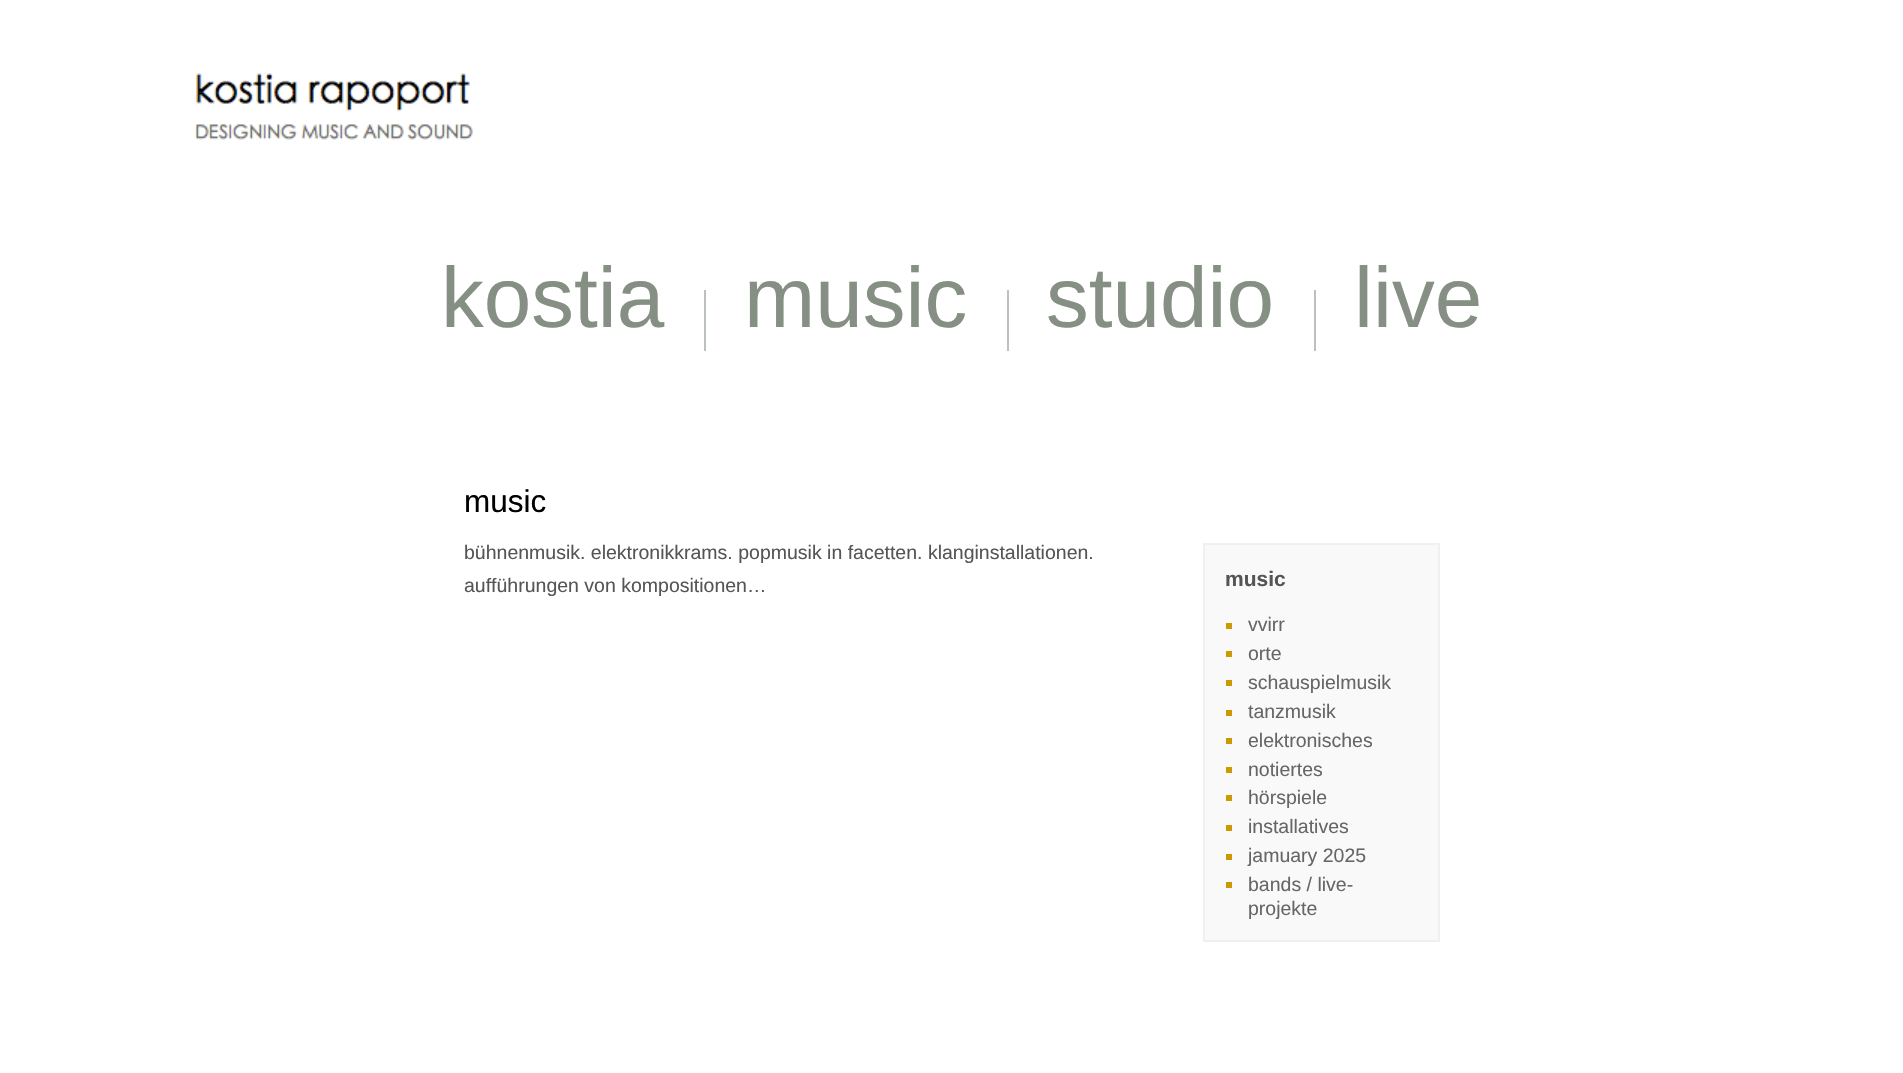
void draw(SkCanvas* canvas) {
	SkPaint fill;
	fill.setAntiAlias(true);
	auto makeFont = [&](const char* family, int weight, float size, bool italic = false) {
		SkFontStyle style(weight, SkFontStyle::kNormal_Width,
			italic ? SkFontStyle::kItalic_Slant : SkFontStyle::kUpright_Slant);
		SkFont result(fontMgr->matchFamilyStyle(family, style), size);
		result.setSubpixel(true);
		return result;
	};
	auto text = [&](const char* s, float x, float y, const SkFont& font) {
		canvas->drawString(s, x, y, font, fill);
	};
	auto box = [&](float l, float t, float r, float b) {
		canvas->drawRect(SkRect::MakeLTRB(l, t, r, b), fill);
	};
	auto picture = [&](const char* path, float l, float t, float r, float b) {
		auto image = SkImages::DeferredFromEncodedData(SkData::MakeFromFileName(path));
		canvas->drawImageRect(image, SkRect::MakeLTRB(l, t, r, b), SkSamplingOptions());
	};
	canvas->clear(0xFFFFFFFF);
	picture("image0.png", 194, 73, 473, 140);
	fill.setColor(0xFFBBC1BC);
	box(704, 290, 706, 351);
	box(1007, 290, 1009, 351);
	box(1314, 290, 1316, 351);
	fill.setColor(0xFFF9F9F9);
	canvas->drawRect(SkRect::MakeLTRB(1204, 544, 1439, 941), fill);
	fill.setStyle(SkPaint::kStroke_Style);
	fill.setStrokeWidth(2);
	fill.setColor(0xFFF0F0F0);
	canvas->drawRect(SkRect::MakeLTRB(1204, 544, 1439, 941), fill);
	fill.setStyle(SkPaint::kFill_Style);
	fill.setColor(0xFFCC9900);
	box(1226, 623, 1232, 629);
	box(1226, 651, 1232, 657);
	box(1226, 680, 1232, 686);
	box(1226, 710, 1232, 716);
	box(1226, 738, 1232, 744);
	box(1226, 767, 1232, 773);
	box(1226, 795, 1232, 801);
	box(1226, 825, 1232, 831);
	box(1226, 854, 1232, 860);
	box(1226, 882, 1232, 888);
	auto font1 = makeFont("Liberation Sans", 400, 85.5f);
	fill.setColor(0xFF868F83);
	text("kostia", 441, 327, font1);
	text("music", 744, 327, font1);
	text("studio", 1046, 327, font1);
	text("live", 1354, 327, font1);
	auto font2 = makeFont("Liberation Sans", 400, 31.5f);
	fill.setColor(0xFF000000);
	text("music", 464, 512, font2);
	auto font3 = makeFont("Liberation Sans", 400, 19.5f);
	fill.setColor(0xFF555555);
	text("bühnenmusik. elektronikkrams. popmusik in facetten. klanginstallationen.", 464, 559, font3);
	text("aufführungen von kompositionen…", 464, 592, font3);
	auto font4 = makeFont("Liberation Sans", 700, 21);
	text("music", 1225, 586, font4);
	fill.setColor(0xFF666666);
	text("vvirr", 1248, 631, font3);
	text("orte", 1248, 660, font3);
	text("schauspielmusik", 1248, 689, font3);
	text("tanzmusik", 1248, 718, font3);
	text("elektronisches", 1248, 747, font3);
	text("notiertes", 1248, 776, font3);
	text("hörspiele", 1248, 804, font3);
	text("installatives", 1248, 833, font3);
	text("jamuary 2025", 1248, 862, font3);
	text("bands / live-", 1248, 891, font3);
	text("projekte", 1248, 915, font3);
}
